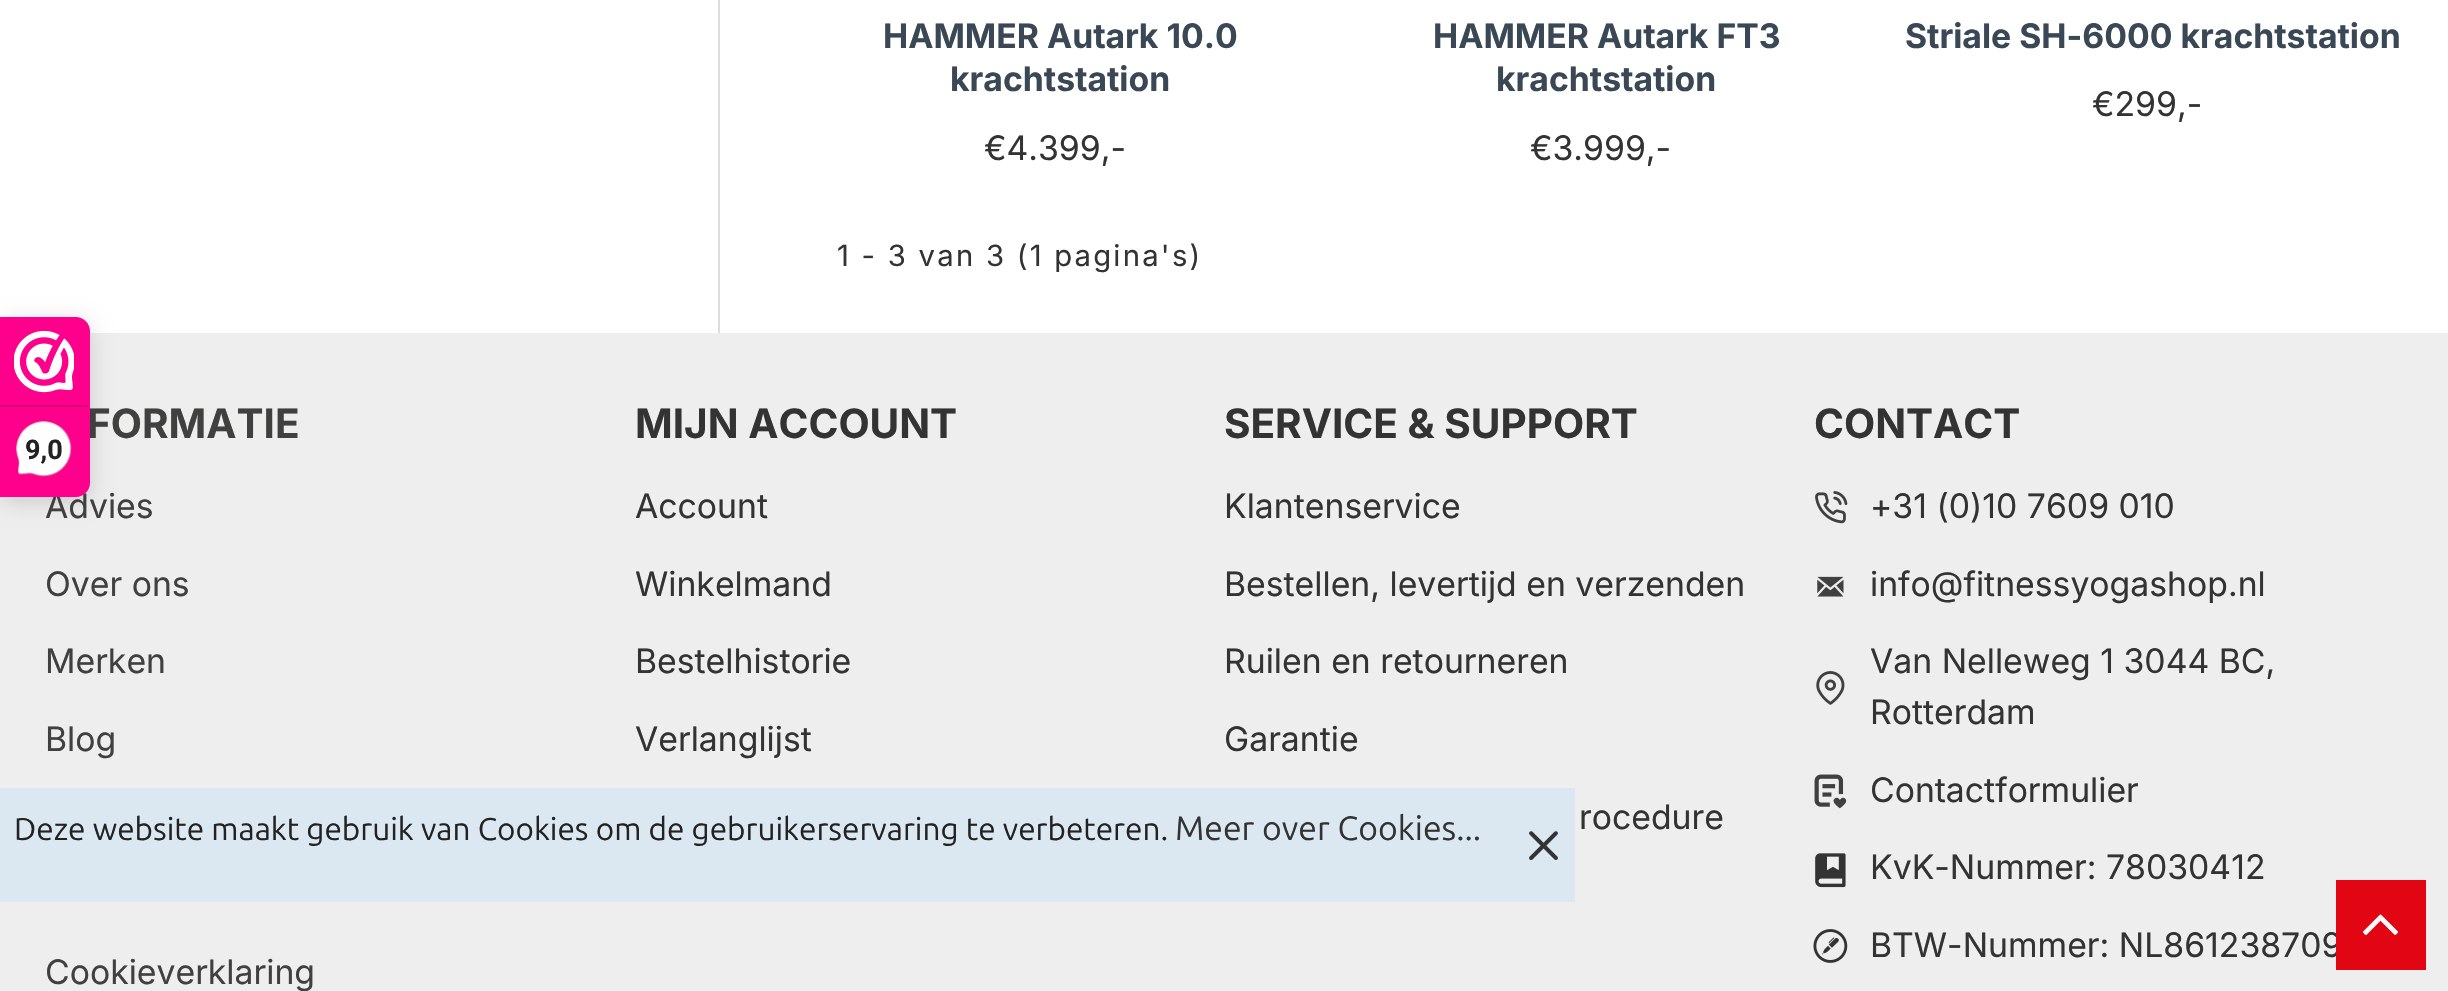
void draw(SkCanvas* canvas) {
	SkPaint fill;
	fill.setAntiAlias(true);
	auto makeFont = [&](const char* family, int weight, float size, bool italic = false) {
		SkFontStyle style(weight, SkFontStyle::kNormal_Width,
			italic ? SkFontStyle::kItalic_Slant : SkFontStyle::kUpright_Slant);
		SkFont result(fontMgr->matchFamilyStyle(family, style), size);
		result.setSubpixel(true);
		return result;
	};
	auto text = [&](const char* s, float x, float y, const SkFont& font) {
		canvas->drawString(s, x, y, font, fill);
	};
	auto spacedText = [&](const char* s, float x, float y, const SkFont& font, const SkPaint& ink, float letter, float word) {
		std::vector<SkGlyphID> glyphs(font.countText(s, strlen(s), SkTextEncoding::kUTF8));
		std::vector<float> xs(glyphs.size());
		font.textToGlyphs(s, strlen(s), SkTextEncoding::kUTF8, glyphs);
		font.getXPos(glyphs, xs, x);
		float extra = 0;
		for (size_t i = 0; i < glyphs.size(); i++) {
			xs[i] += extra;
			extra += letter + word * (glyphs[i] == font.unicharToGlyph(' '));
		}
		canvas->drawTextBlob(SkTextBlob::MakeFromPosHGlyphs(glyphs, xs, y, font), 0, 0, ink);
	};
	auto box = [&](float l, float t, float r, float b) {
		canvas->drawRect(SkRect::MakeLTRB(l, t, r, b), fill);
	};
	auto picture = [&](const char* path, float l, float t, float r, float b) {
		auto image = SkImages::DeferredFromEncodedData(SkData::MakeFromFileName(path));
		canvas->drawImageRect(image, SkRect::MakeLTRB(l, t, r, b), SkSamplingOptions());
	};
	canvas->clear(0xFFFFFFFF);
	fill.setColor(0xFFEEEEEE);
	box(0, 333, 2448, 991);
	fill.setColor(0x26000000);
	fill.setMaskFilter(SkMaskFilter::MakeBlur(kNormal_SkBlurStyle, 11));
	canvas->drawRoundRect(SkRect::MakeLTRB(0, 322, 90, 502), 14, 14, fill);
	fill.setMaskFilter(nullptr);
	fill.setColor(0xFFDDDDDD);
	box(718, 0, 720, 333);
	picture("image2.png", 1815, 491, 1848, 524);
	picture("image3.png", 1817, 576, 1844, 597);
	picture("image4.png", 1816, 671, 1845, 705);
	picture("image5.png", 1814, 774, 1847, 809);
	picture("image6.png", 1815, 853, 1846, 888);
	picture("image7.png", 1813, 929, 1848, 963);
	fill.setColor(0xFFDBE8F2);
	box(0, 788, 1575, 902);
	picture("image8.png", 1529, 831, 1558, 860);
	auto font1 = makeFont("Inter", 700, 33.75f);
	fill.setColor(0xFF3A4754);
	text("HAMMER Autark 10.0", 883, 48, font1);
	text("krachtstation", 950, 91, font1);
	auto font2 = makeFont("Inter", 400, 33.75f);
	fill.setColor(0xFF333333);
	text("€4.399,-", 984, 160, font2);
	fill.setColor(0xFF3A4754);
	text("HAMMER Autark FT3", 1433, 48, font1);
	text("krachtstation", 1496, 91, font1);
	fill.setColor(0xFF333333);
	text("€3.999,-", 1530, 160, font2);
	fill.setColor(0xFF3A4754);
	text("Striale SH-6000 krachtstation", 1905, 48, font1);
	fill.setColor(0xFF333333);
	text("€299,-", 2092, 116, font2);
	auto font3 = makeFont("Inter", 400, 29.25f);
	spacedText("1 - 3 van 3 (1 pagina's)", 837, 266, font3, fill, 2.25f, 0);
	auto font4 = makeFont("Inter", 700, 40.5f);
	fill.setColor(0xFF40403F);
	text("FORMATIE", 87, 438, font4);
	text("Advies", 45, 518, font2);
	fill.setColor(0xFFFE008C);
	canvas->drawPath(SkPathBuilder().moveTo(0, 317).lineTo(76, 317).cubicTo(83.5f, 317, 90, 323.5f, 90, 331).lineTo(90, 483).cubicTo(90, 490.5f, 83.5f, 497, 76, 497).lineTo(0, 497).close().detach(), fill);
	fill.setColor(0xFFD80077);
	box(0, 405, 88, 407);
	picture("image0.png", 14, 331, 74, 393);
	picture("image1.png", 16, 421, 72, 477);
	auto font5 = makeFont("Roboto", 700, 27);
	fill.setColor(0xFF222222);
	text("9,0", 25, 459, font5);
	fill.setColor(0xFF40403F);
	text("Over ons", 45, 596, font2);
	text("Merken", 45, 673, font2);
	text("Blog", 45, 751, font2);
	text("Cookieverklaring", 45, 984, font2);
	fill.setColor(0xFF333333);
	text("MIJN ACCOUNT", 635, 438, font4);
	text("Account", 635, 518, font2);
	text("Winkelmand", 635, 596, font2);
	text("Bestelhistorie", 635, 673, font2);
	text("Verlanglijst", 635, 751, font2);
	text("SERVICE & SUPPORT", 1224, 438, font4);
	text("Klantenservice", 1224, 518, font2);
	text("Bestellen, levertijd en verzenden", 1224, 596, font2);
	text("Ruilen en retourneren", 1224, 673, font2);
	text("Garantie", 1224, 751, font2);
	text("rocedure", 1579, 829, font2);
	text("CONTACT", 1814, 438, font4);
	text("+31 (0)10 7609 010", 1870, 518, font2);
	text("info@fitnessyogashop.nl", 1870, 596, font2);
	text("Van Nelleweg 1 3044 BC,", 1870, 673, font2);
	text("Rotterdam", 1870, 724, font2);
	text("Contactformulier", 1870, 802, font2);
	text("KvK-Nummer: 78030412", 1870, 879, font2);
	text("BTW-Nummer: NL861238709", 1870, 957, font2);
	auto font6 = makeFont("Ubuntu", 400, 31.5f);
	fill.setColor(0xFF222222);
	text("Deze website maakt gebruik van Cookies om de gebruikerservaring te verbeteren.", 14, 840, font6);
	auto font7 = makeFont("Ubuntu", 400, 33.75f);
	fill.setColor(0xFF333333);
	text("Meer over Cookies...", 1175, 840, font7);
	fill.setColor(0xFFE20513);
	box(2336, 880, 2426, 970);
	picture("image9.png", 2363, 914, 2398, 935);
}
